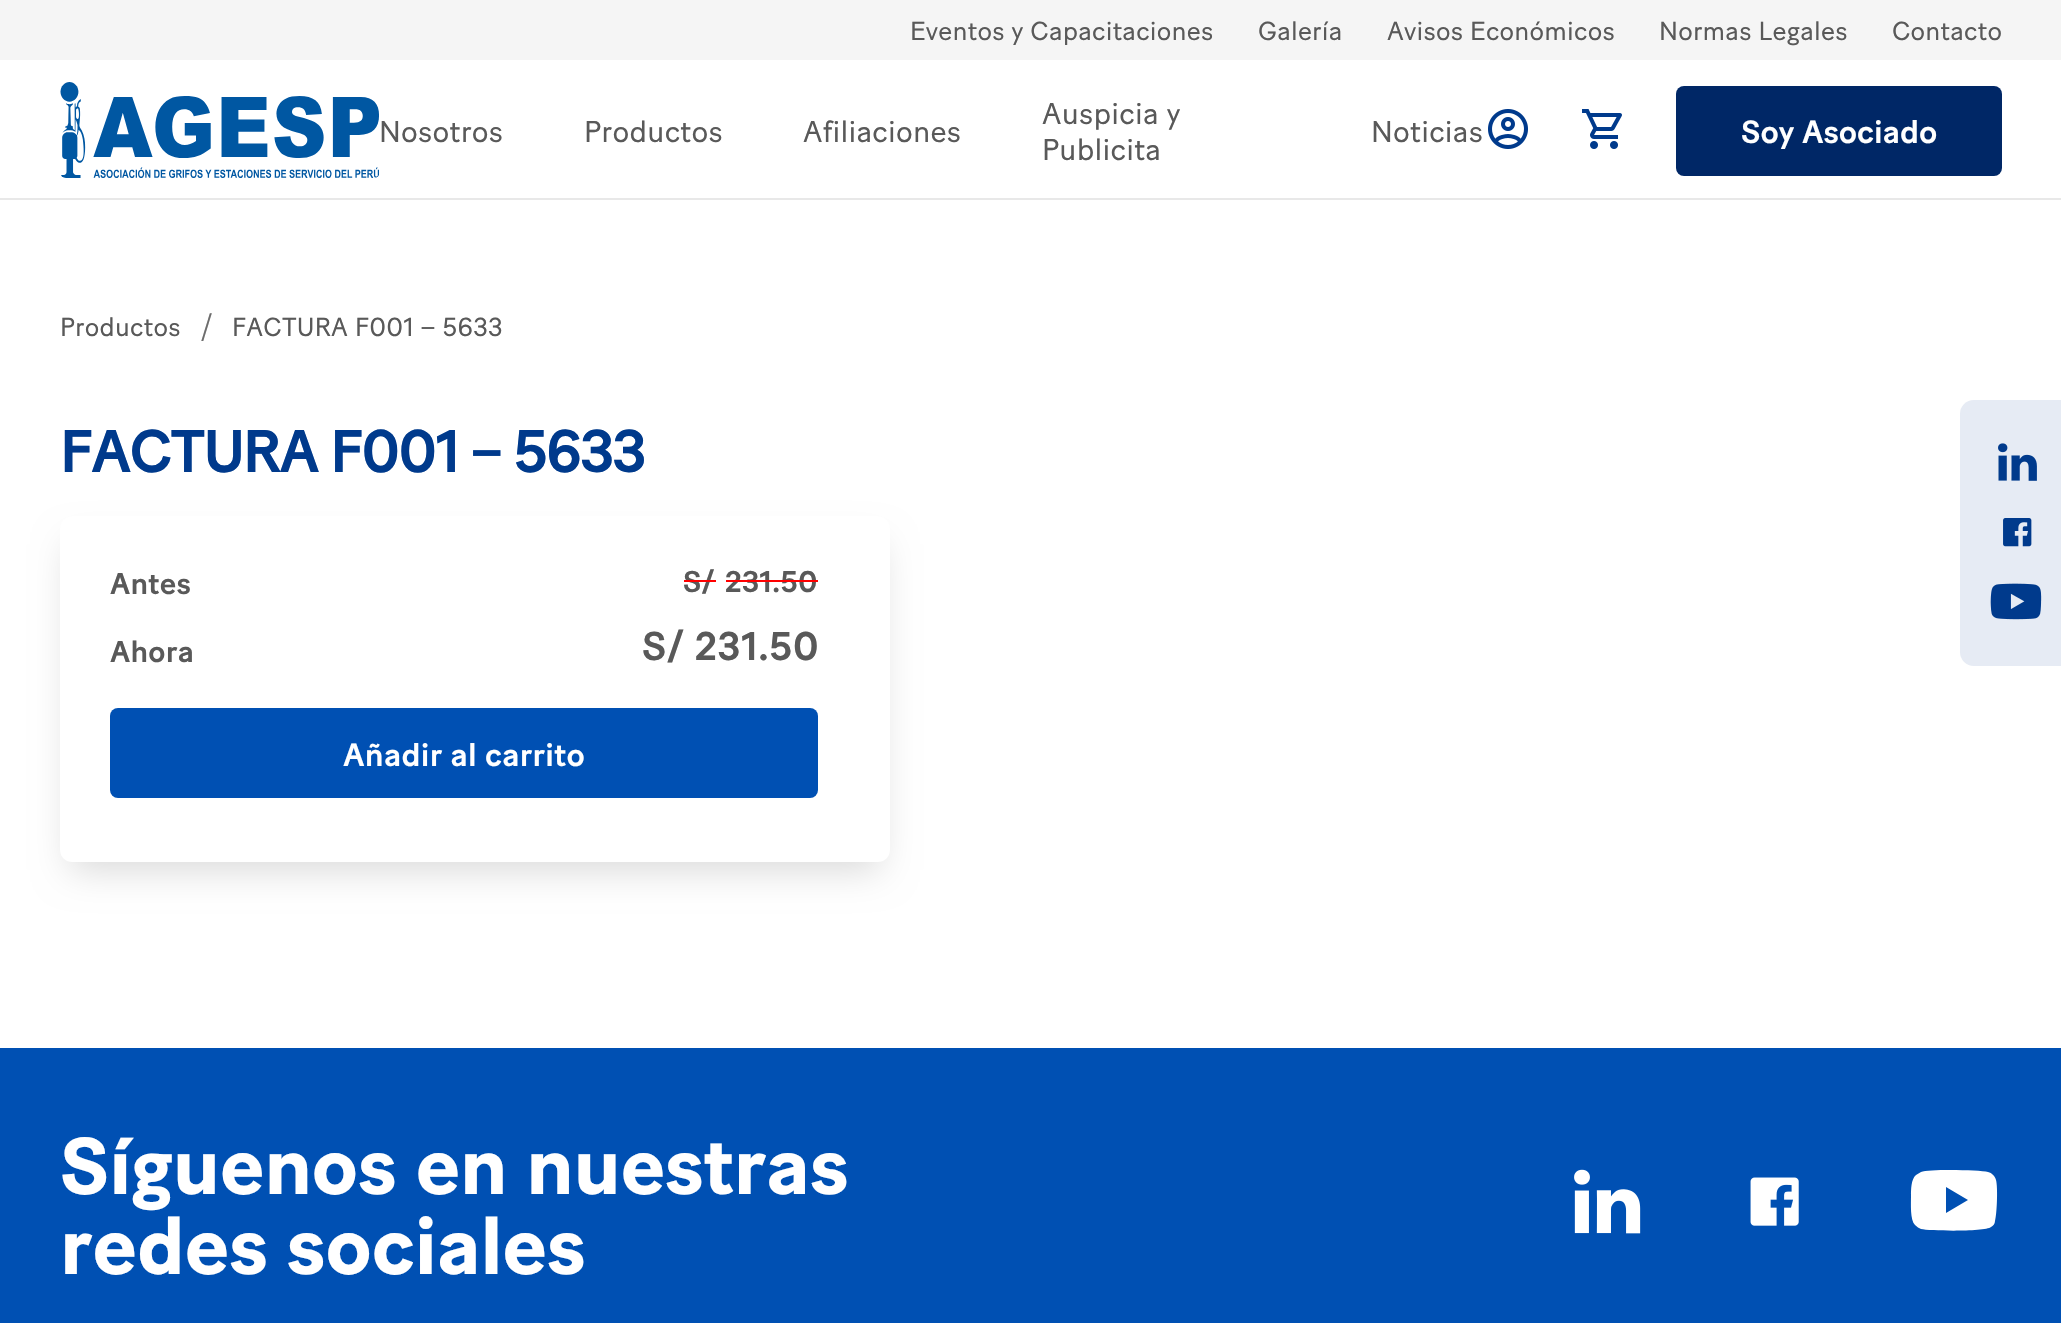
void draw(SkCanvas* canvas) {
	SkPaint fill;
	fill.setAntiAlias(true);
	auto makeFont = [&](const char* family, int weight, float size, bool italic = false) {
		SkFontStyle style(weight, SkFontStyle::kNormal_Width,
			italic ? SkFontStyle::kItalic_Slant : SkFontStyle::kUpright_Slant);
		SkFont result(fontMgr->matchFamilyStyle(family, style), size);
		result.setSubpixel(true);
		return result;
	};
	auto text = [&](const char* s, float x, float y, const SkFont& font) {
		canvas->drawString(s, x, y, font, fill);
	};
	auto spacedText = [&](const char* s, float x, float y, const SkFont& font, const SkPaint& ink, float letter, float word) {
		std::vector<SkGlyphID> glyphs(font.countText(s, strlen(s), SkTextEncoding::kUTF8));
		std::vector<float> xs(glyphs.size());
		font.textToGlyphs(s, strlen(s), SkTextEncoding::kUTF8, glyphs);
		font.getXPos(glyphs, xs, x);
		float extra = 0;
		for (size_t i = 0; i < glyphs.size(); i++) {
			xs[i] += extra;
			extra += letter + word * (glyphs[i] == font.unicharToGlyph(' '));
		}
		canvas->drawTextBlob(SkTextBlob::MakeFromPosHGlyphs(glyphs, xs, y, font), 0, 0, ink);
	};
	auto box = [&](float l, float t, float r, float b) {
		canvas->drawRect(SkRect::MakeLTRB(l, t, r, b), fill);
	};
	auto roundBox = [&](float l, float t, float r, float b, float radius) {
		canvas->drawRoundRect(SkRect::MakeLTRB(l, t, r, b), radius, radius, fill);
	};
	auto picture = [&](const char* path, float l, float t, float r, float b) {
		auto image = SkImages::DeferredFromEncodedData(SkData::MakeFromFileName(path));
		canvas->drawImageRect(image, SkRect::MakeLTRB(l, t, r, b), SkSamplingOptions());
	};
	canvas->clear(0xFFFFFFFF);
	fill.setColor(0xFFE8E8E8);
	box(0, 198, 2061, 200);
	fill.setColor(0xFFF5F5F5);
	box(0, 0, 2061, 60);
	picture("image0.png", 60, 82, 379, 178);
	picture("image1.png", 1488, 109, 1528, 149);
	picture("image2.png", 1582, 109, 1622, 149);
	fill.setColor(0xFF002766);
	roundBox(1676, 86, 2002, 176, 8);
	fill.setColor(0x26000000);
	fill.setMaskFilter(SkMaskFilter::MakeBlur(kNormal_SkBlurStyle, 18));
	canvas->drawRoundRect(SkRect::MakeLTRB(70, 544, 880, 870), 2, 2, fill);
	fill.setMaskFilter(nullptr);
	fill.setColor(0xFFFFFFFF);
	roundBox(60, 516, 890, 862, 12);
	fill.setColor(0xFF0050B3);
	roundBox(110, 708, 818, 798, 8);
	fill.setColor(0xFFE6EBF4);
	roundBox(1960, 400, 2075, 666, 14);
	picture("image3.png", 1998, 443, 2037, 481);
	picture("image4.png", 2003, 518, 2032, 547);
	picture("image5.png", 1990, 583, 2042, 620);
	fill.setColor(0xFF0050B3);
	box(0, 1048, 2061, 1323);
	picture("image6.png", 1574, 1169, 1641, 1234);
	picture("image7.png", 1750, 1177, 1799, 1226);
	fill.setColor(0xFFFFFFFF);
	canvas->drawPath(SkPathBuilder().moveTo(1996, 1180).cubicTo(1995, 1176, 1992, 1173, 1988, 1172).cubicTo(1980, 1170, 1929, 1169, 1921, 1172).lineTo(1916, 1175).cubicTo(1911, 1179, 1911, 1190, 1911, 1196).cubicTo(1911, 1204, 1910, 1220, 1915, 1225).cubicTo(1917, 1227, 1919, 1228, 1921, 1229).cubicTo(1930, 1231, 1985, 1232, 1991, 1227).cubicTo(1993, 1226, 1995, 1224, 1995, 1221).cubicTo(1997, 1214, 1998, 1187, 1996, 1180).close().moveTo(1946, 1213).lineTo(1946, 1187).lineTo(1968, 1200).close().detach(), fill);
	auto font1 = makeFont("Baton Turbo", 400, 26);
	fill.setColor(0xFF595959);
	spacedText("Eventos y Capacitaciones", 910, 40, font1, fill, 0.25f, 0);
	spacedText("Galería", 1258, 40, font1, fill, 0.25f, 0);
	spacedText("Avisos Económicos", 1387, 40, font1, fill, 0.25f, 0);
	spacedText("Normas Legales", 1659, 40, font1, fill, 0.25f, 0);
	spacedText("Contacto", 1892, 40, font1, fill, 0.25f, 0);
	auto font2 = makeFont("Baton Turbo", 400, 30);
	spacedText("Nosotros", 379, 142, font2, fill, 0.25f, 0);
	spacedText("Productos", 584, 142, font2, fill, 0.25f, 0);
	spacedText("Afiliaciones", 803, 142, font2, fill, 0.25f, 0);
	spacedText("Auspicia y", 1042, 124, font2, fill, 0.25f, 0);
	spacedText("Publicita", 1042, 160, font2, fill, 0.25f, 0);
	spacedText("Noticias", 1371, 142, font2, fill, 0.25f, 0);
	auto font3 = makeFont("Baton Turbo", 500, 32);
	fill.setColor(0xFFFFFFFF);
	text("Soy Asociado", 1741, 143, font3);
	fill.setColor(0xFF595959);
	spacedText("Productos", 60, 336, font1, fill, 0.25f, 0);
	auto font4 = makeFont("Source Sans Pro", 400, 32);
	fill.setColor(0xFF6D6D6D);
	text("/", 201, 336, font4);
	fill.setColor(0xFF595959);
	spacedText("FACTURA F001 – 5633", 232, 336, font1, fill, 0.25f, 0);
	auto font5 = makeFont("Baton Turbo", 500, 60);
	fill.setColor(0xFF003A8C);
	spacedText("FACTURA F001 – 5633", 60, 472, font5, fill, -2, 0);
	auto font6 = makeFont("Baton Turbo", 500, 30);
	fill.setColor(0xFF595959);
	spacedText("Antes", 110, 594, font6, fill, 0.25f, 0);
	spacedText("S/", 683, 592, font6, fill, 0.25f, 0);
	fill.setColor(0xFFFF0000);
	box(684, 580, 716, 582);
	fill.setColor(0xFF595959);
	spacedText("231.50", 725, 592, font6, fill, 0.25f, 0);
	fill.setColor(0xFFFF0000);
	box(726, 580, 818, 582);
	fill.setColor(0xFF595959);
	spacedText("Ahora", 110, 662, font6, fill, 0.25f, 0);
	auto font7 = makeFont("Baton Turbo", 500, 40);
	spacedText("S/ 231.50", 642, 660, font7, fill, 0.5f, 0);
	fill.setColor(0xFFFFFFFF);
	spacedText("Añadir al carrito", 343, 766, font3, fill, 0.3f, 0);
	auto font8 = makeFont("Baton Turbo", 700, 80);
	text("Síguenos en nuestras", 60, 1194, font8);
	text("redes sociales", 60, 1274, font8);
}
